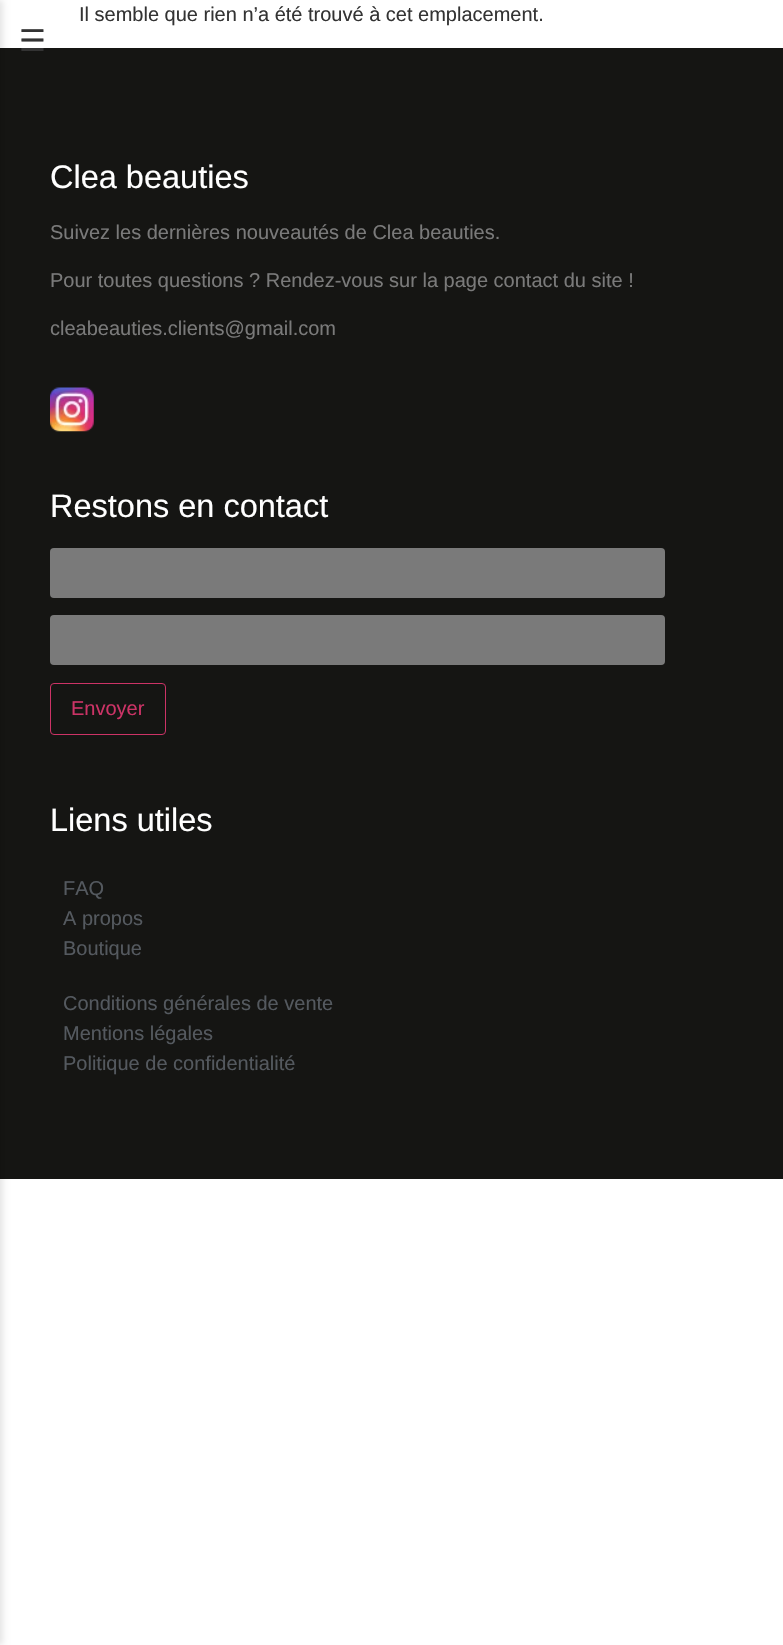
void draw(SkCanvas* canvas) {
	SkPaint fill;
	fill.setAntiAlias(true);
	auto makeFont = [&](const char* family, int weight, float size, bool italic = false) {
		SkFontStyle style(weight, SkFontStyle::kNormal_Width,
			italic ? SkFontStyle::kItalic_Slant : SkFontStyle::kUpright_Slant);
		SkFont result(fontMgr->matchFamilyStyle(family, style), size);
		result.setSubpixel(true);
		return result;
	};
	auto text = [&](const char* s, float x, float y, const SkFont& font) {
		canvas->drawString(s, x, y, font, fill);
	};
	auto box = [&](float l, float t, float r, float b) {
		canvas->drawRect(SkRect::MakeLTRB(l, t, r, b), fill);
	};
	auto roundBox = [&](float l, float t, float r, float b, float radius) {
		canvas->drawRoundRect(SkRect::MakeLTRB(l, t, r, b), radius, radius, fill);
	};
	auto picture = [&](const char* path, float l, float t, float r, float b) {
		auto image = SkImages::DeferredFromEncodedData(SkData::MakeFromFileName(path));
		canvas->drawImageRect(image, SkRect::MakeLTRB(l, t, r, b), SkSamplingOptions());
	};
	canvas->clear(0xFFFFFFFF);
	fill.setColor(0xFF151513);
	box(0, 48, 783, 1179);
	fill.setColor(0x1A000000);
	fill.setMaskFilter(SkMaskFilter::MakeBlur(kNormal_SkBlurStyle, 3));
	canvas->drawRect(SkRect::MakeLTRB(-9, 0, 3, 1645), fill);
	fill.setMaskFilter(nullptr);
	picture("image0.png", 50, 387, 94, 432);
	fill.setColor(0xFF7A7A7A);
	roundBox(50, 548, 665, 598, 4);
	roundBox(50, 615, 665, 665, 4);
	fill.setStyle(SkPaint::kStroke_Style);
	fill.setStrokeWidth(1);
	fill.setColor(0xFFCC3366);
	canvas->drawRoundRect(SkRect::MakeLTRB(50.5f, 683.5f, 165.5f, 734.5f), 3.5f, 3.5f, fill);
	auto font1 = makeFont("DejaVu Sans", 400, 30);
	fill.setStyle(SkPaint::kFill_Style);
	fill.setColor(0xFF333333);
	text("☰", 19, 51, font1);
	auto font2 = makeFont("Liberation Sans", 400, 20);
	text("Il semble que rien n’a été trouvé à cet emplacement.", 79, 21, font2);
	auto font3 = makeFont("Liberation Sans", 400, 32.5f);
	fill.setColor(0xFFFFFFFF);
	text("Clea beauties", 50, 188, font3);
	fill.setColor(0xFF7A7A7A);
	text("Suivez les dernières nouveautés de Clea beauties.", 50, 239, font2);
	text("Pour toutes questions ? Rendez-vous sur la page contact du site !", 50, 287, font2);
	text("cleabeauties.clients@gmail.com", 50, 335, font2);
	fill.setColor(0xFFFFFFFF);
	text("Restons en contact", 50, 517, font3);
	fill.setColor(0xFFCC3366);
	text("Envoyer", 71, 715, font2);
	fill.setColor(0xFFFFFFFF);
	text("Liens utiles", 50, 831, font3);
	fill.setColor(0xFF54595F);
	text("FAQ", 63, 895, font2);
	text("A propos", 63, 925, font2);
	text("Boutique", 63, 955, font2);
	text("Conditions générales de vente", 63, 1010, font2);
	text("Mentions légales", 63, 1040, font2);
	text("Politique de confidentialité", 63, 1070, font2);
}
